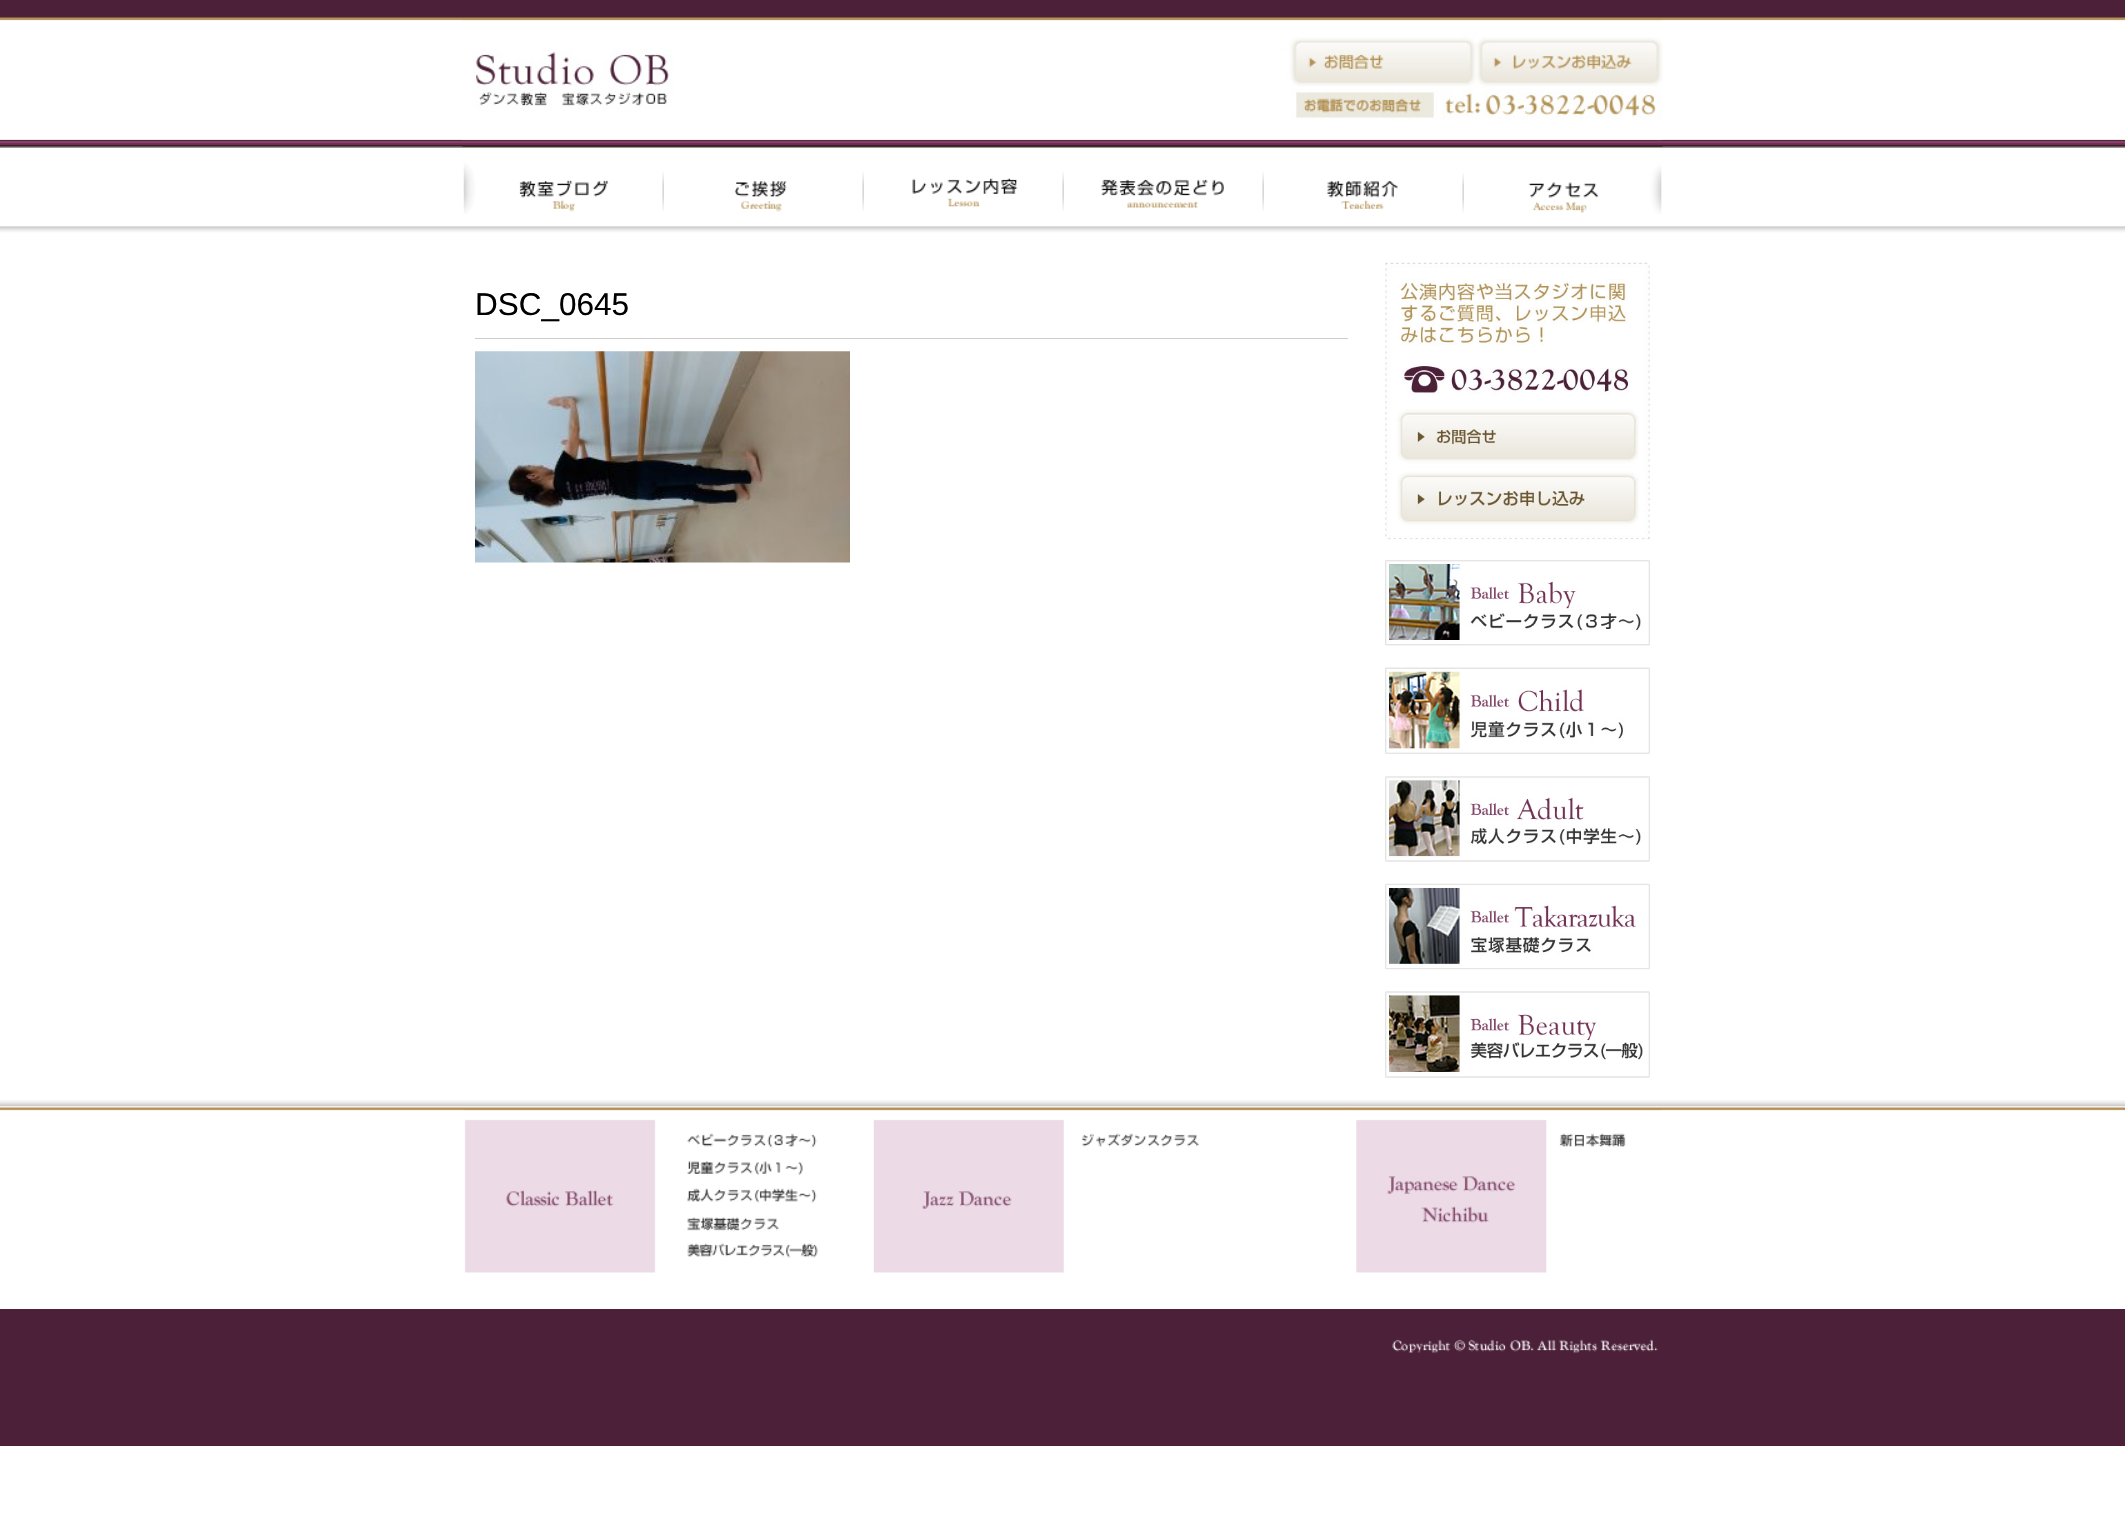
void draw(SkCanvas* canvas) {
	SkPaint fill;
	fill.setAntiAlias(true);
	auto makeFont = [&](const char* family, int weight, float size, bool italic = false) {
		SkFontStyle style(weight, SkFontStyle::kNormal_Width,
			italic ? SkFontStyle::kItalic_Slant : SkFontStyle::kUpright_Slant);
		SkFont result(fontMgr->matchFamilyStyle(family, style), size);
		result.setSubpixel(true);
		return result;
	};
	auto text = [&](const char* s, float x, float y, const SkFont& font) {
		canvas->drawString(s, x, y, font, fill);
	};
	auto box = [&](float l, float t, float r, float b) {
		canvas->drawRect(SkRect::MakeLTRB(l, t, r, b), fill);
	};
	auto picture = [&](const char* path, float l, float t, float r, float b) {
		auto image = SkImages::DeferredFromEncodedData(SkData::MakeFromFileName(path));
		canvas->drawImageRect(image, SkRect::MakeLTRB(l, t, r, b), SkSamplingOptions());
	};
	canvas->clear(0xFFFFFFFF);
	picture("image0.png", 0, 0, 2125, 147);
	picture("image2.png", 0, 146, 2125, 233);
	picture("image1.png", 462, 19, 1663, 147);
	picture("image3.png", 462, 146, 663, 214);
	picture("image4.png", 662, 146, 863, 212);
	picture("image5.png", 862, 146, 1063, 211);
	picture("image6.png", 1062, 146, 1263, 211);
	picture("image7.png", 1262, 146, 1463, 211);
	picture("image8.png", 1462, 146, 1663, 214);
	fill.setColor(0xFFCCCCCC);
	box(475, 338, 1348, 339);
	picture("image9.png", 475, 351, 850, 563);
	picture("image10.png", 1385, 262, 1650, 406);
	picture("image11.png", 1385, 406, 1650, 469);
	picture("image12.png", 1385, 469, 1650, 540);
	picture("image13.png", 1385, 560, 1650, 646);
	picture("image14.png", 1385, 667, 1650, 754);
	picture("image15.png", 1385, 776, 1650, 862);
	picture("image16.png", 1385, 883, 1650, 970);
	picture("image17.png", 1385, 991, 1650, 1078);
	picture("image18.png", 0, 1100, 2125, 1111);
	picture("image19.png", 463, 1109, 866, 1273);
	picture("image20.png", 866, 1109, 1347, 1273);
	picture("image21.png", 1348, 1109, 1662, 1273);
	fill.setColor(0xFF4C2039);
	box(0, 1309, 2125, 1446);
	picture("image22.png", 1392, 1339, 1658, 1353);
	auto font1 = makeFont("Liberation Sans", 400, 31.5f);
	fill.setColor(0xFF000000);
	text("DSC_0645", 475, 315, font1);
}
